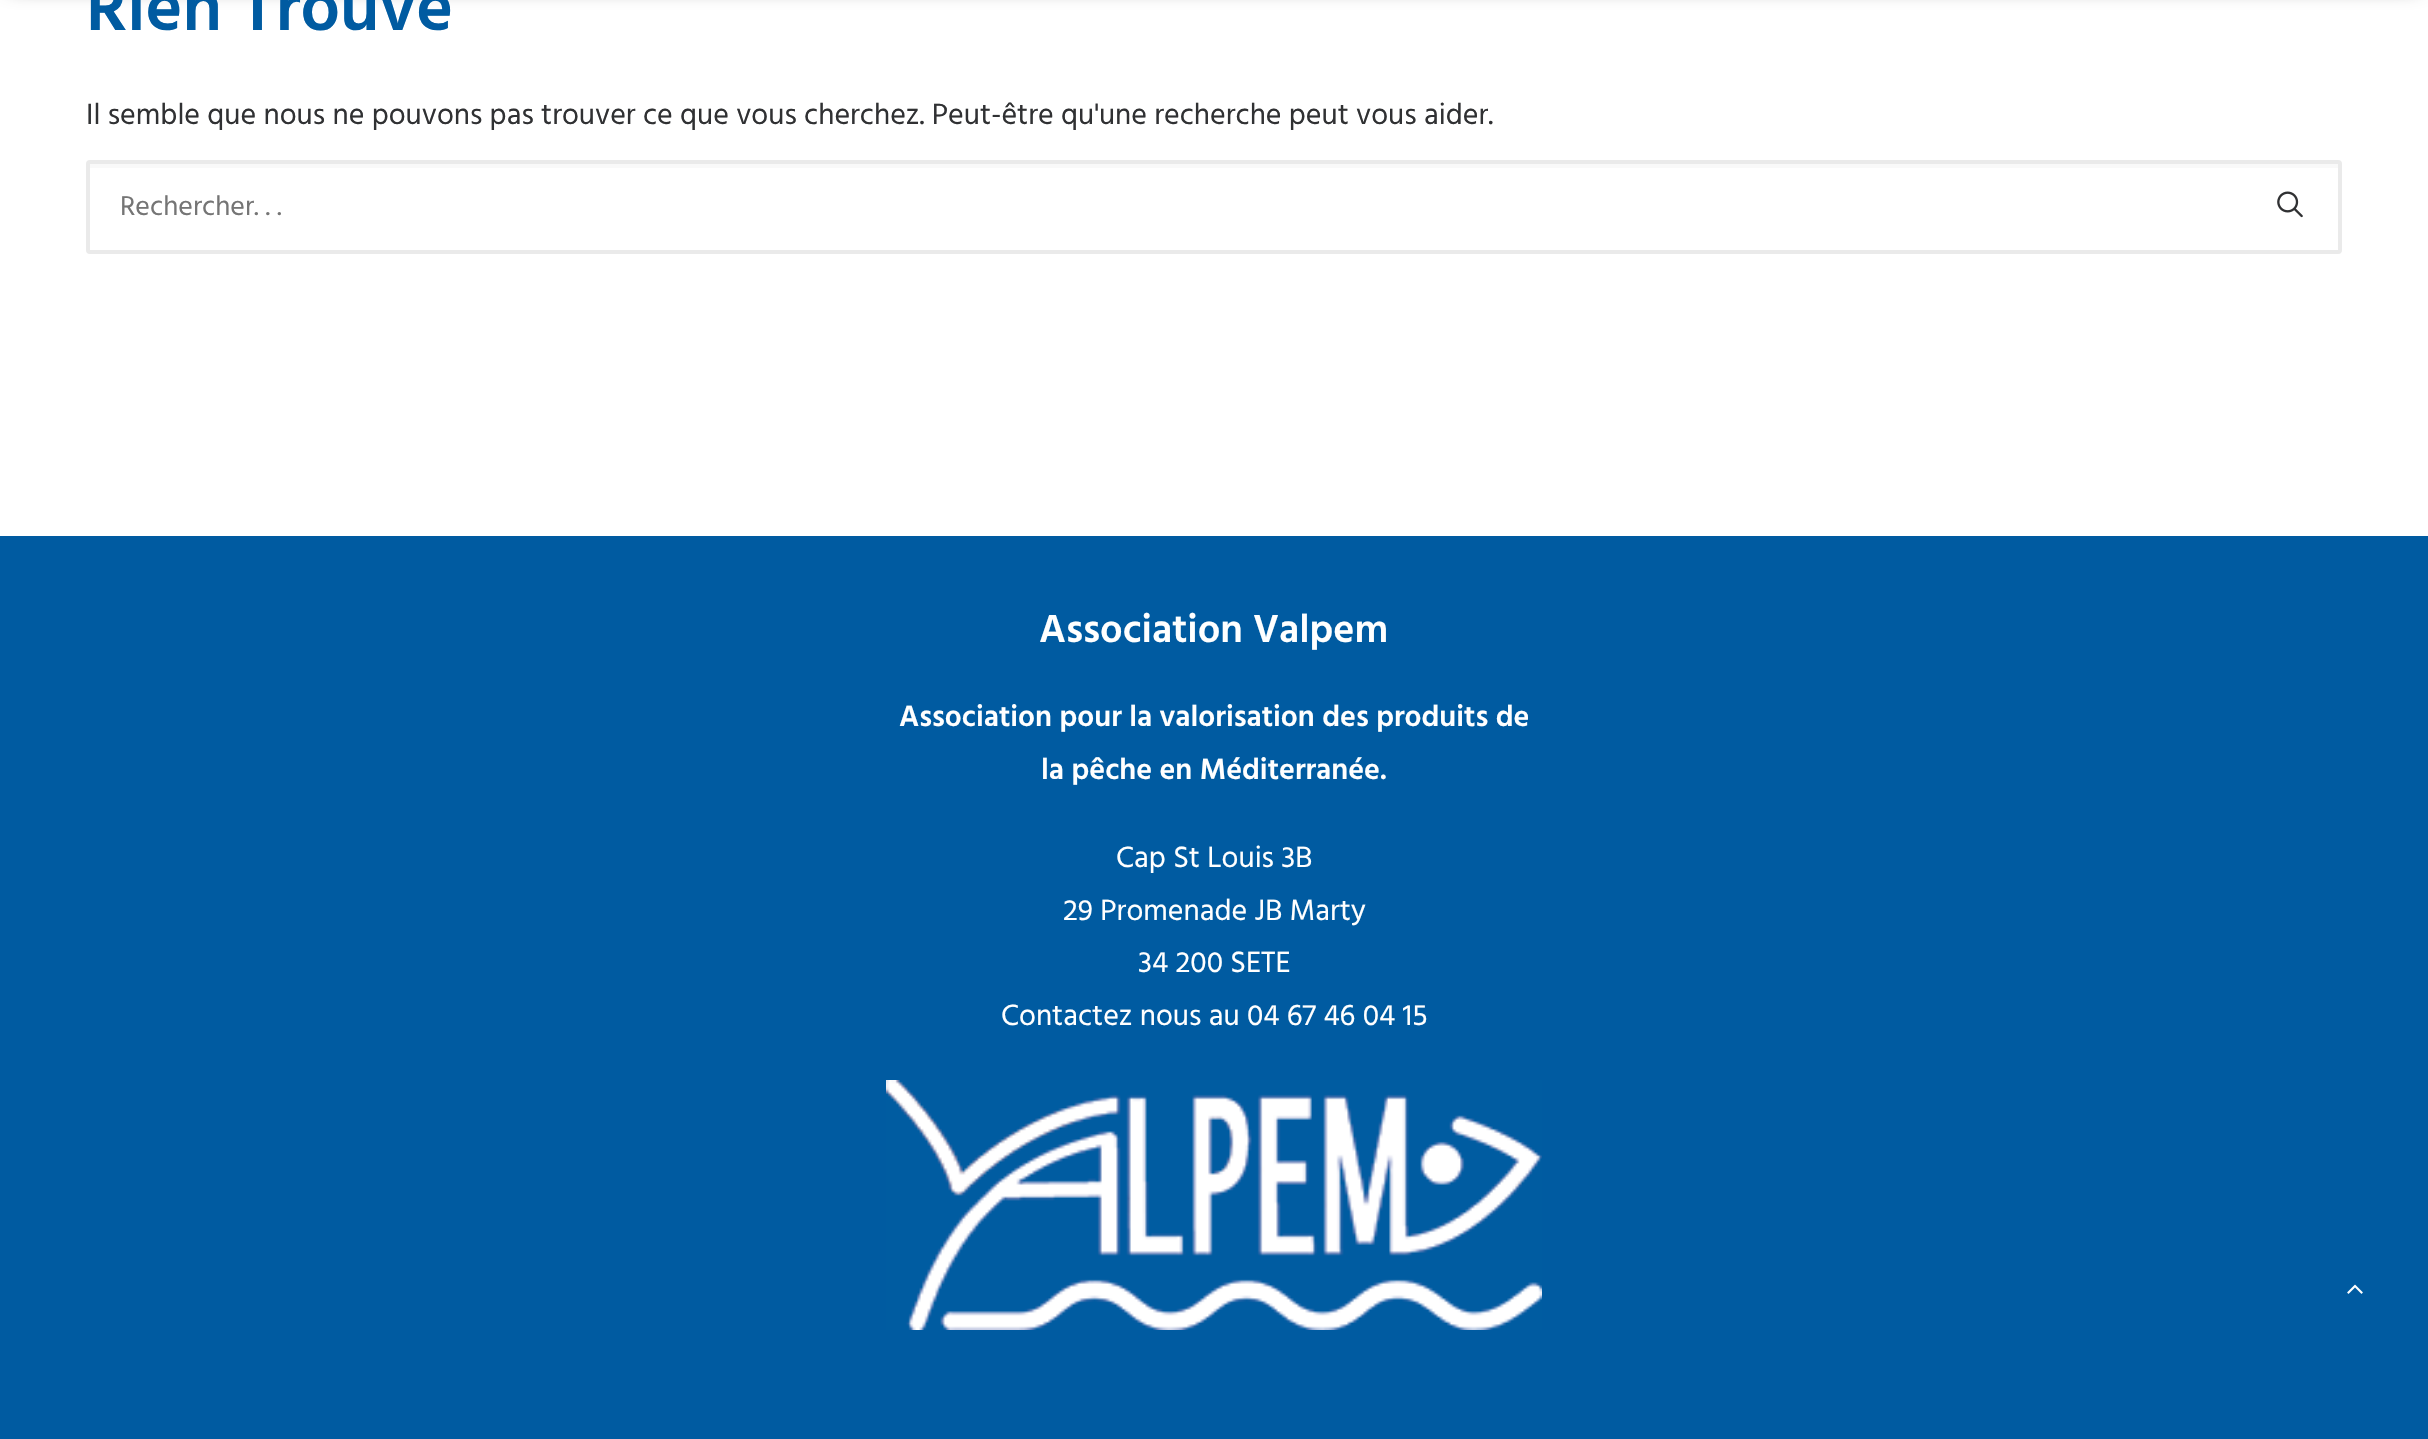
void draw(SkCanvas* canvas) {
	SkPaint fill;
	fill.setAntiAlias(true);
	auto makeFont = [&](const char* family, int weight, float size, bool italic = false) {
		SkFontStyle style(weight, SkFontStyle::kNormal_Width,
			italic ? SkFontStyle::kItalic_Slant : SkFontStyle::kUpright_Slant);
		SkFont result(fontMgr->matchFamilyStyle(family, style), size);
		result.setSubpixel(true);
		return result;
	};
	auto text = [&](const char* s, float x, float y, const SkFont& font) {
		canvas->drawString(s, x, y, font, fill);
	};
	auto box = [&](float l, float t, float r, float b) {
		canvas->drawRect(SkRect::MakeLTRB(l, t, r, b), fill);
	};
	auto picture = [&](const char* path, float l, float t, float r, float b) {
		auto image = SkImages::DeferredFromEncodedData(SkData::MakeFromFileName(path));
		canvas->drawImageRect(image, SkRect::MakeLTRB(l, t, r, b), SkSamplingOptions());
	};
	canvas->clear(0xFF005BA1);
	fill.setColor(0xFFFFFFFF);
	box(0, 0, 2428, 536);
	fill.setColor(0x99000000);
	fill.setMaskFilter(SkMaskFilter::MakeBlur(kNormal_SkBlurStyle, 10));
	canvas->drawRect(SkRect::MakeLTRB(10, -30, 2418, -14), fill);
	fill.setMaskFilter(nullptr);
	fill.setColor(0xFFF9F9F9);
	box(90, 164, 2338, 168);
	fill.setStyle(SkPaint::kStroke_Style);
	fill.setStrokeWidth(4);
	fill.setColor(0xFFEAEAEA);
	canvas->drawRoundRect(SkRect::MakeLTRB(88, 162, 2340, 252), 2, 2, fill);
	picture("image0.png", 2277, 191, 2303, 218);
	picture("image1.png", 886, 1080, 1542, 1330);
	picture("image2.png", 2347, 1284, 2363, 1294);
	auto font1 = makeFont("Hind", 600, 70);
	fill.setStyle(SkPaint::kFill_Style);
	fill.setColor(0xFF005BA1);
	text("Rien Trouvé", 86, 30, font1);
	auto font2 = makeFont("Hind", 400, 30);
	fill.setColor(0xFF303133);
	text("Il semble que nous ne pouvons pas trouver ce que vous cherchez. Peut-être qu'une recherche peut vous aider.", 86, 124, font2);
	auto font3 = makeFont("Hind", 400, 28);
	fill.setColor(0xFF757575);
	text("Rechercher. . .", 120, 215, font3);
	auto font4 = makeFont("Hind", 600, 40);
	fill.setColor(0xFFFFFFFF);
	text("Association Valpem", 1039, 642, font4);
	auto font5 = makeFont("Hind", 600, 30);
	text("Association pour la valorisation des produits de", 899, 726, font5);
	text("la pêche en Méditerranée.", 1041, 779, font5);
	text("Cap St Louis 3B", 1116, 867, font2);
	text("29 Promenade JB Marty", 1063, 920, font2);
	text("34 200 SETE", 1138, 972, font2);
	text("Contactez nous au 04 67 46 04 15", 1001, 1025, font2);
}
